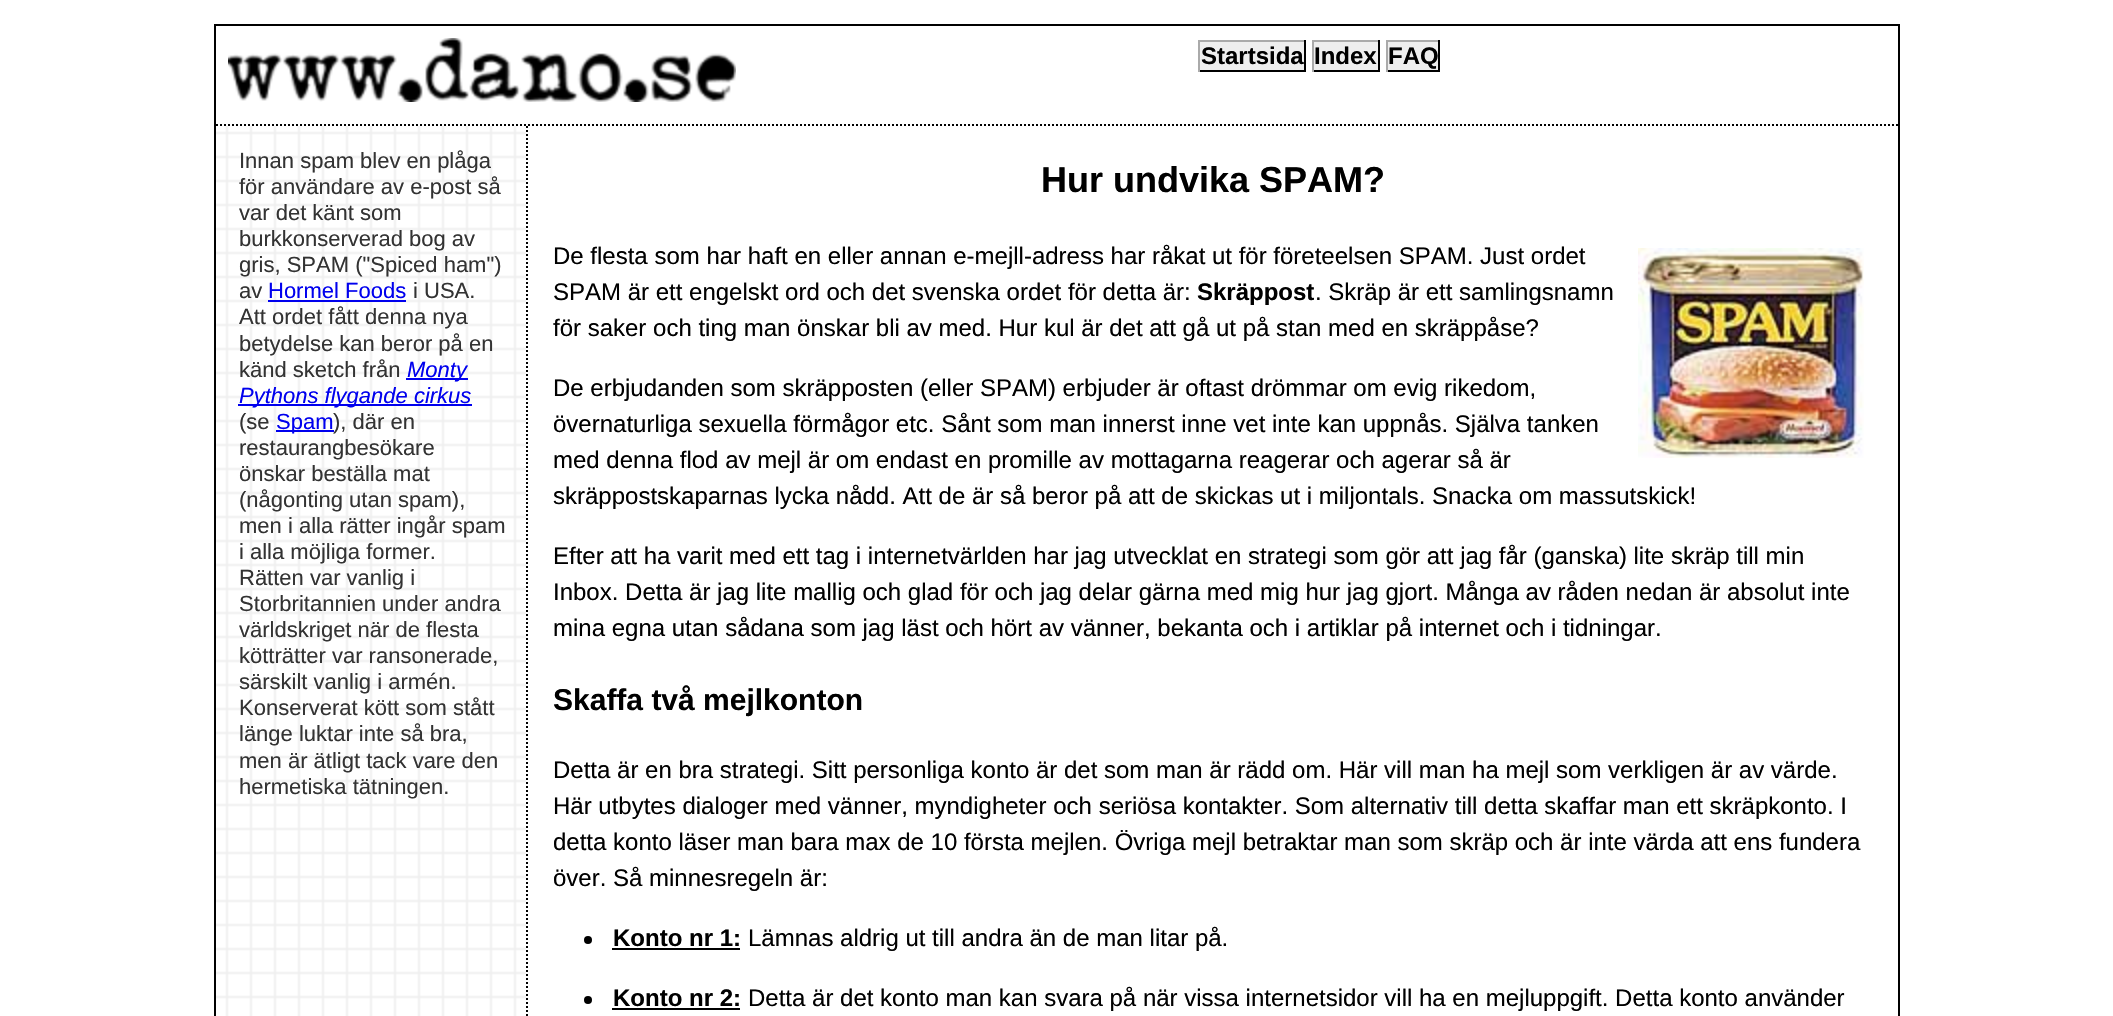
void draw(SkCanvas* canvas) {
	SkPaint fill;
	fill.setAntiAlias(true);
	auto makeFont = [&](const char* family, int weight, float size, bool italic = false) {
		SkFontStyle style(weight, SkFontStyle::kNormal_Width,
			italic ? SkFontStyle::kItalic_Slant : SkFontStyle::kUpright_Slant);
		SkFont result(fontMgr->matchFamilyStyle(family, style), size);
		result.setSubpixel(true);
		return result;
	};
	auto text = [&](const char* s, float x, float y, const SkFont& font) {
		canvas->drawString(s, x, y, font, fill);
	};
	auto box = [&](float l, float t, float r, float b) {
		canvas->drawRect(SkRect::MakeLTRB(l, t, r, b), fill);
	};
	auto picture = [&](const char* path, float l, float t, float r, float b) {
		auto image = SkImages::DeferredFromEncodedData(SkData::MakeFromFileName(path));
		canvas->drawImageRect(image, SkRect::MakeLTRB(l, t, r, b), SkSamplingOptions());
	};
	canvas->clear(0xFFFFFFFF);
	picture("image0.png", 216, 126, 526, 1016);
	fill.setStyle(SkPaint::kStroke_Style);
	fill.setStrokeWidth(2);
	fill.setColor(0xFF000000);
	canvas->drawRect(SkRect::MakeLTRB(215, 25, 1899, 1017), fill);
	fill.setPathEffect(SkDashPathEffect::Make({{2, 2}}, 0));
	canvas->drawPath(SkPathBuilder().moveTo(216, 125).lineTo(1898, 125).detach(), fill);
	fill.setPathEffect(nullptr);
	picture("image1.png", 228, 38, 736, 102);
	fill.setStyle(SkPaint::kFill_Style);
	fill.setColor(0xFFEEEEEE);
	box(1200, 42, 1304, 70);
	fill.setColor(0xFFAAAAAA);
	box(1198, 40, 1306, 42);
	fill.setColor(0xFF000000);
	box(1304, 40, 1306, 72);
	box(1198, 70, 1306, 72);
	fill.setColor(0xFFAAAAAA);
	box(1198, 40, 1200, 72);
	fill.setColor(0xFFEEEEEE);
	box(1314, 42, 1378, 70);
	fill.setColor(0xFFAAAAAA);
	box(1312, 40, 1380, 42);
	fill.setColor(0xFF000000);
	box(1378, 40, 1380, 72);
	box(1312, 70, 1380, 72);
	fill.setColor(0xFFAAAAAA);
	box(1312, 40, 1314, 72);
	fill.setColor(0xFFEEEEEE);
	box(1388, 42, 1438, 70);
	fill.setColor(0xFFAAAAAA);
	box(1386, 40, 1440, 42);
	fill.setColor(0xFF000000);
	box(1438, 40, 1440, 72);
	box(1386, 70, 1440, 72);
	fill.setColor(0xFFAAAAAA);
	box(1386, 40, 1388, 72);
	fill.setStyle(SkPaint::kStroke_Style);
	fill.setColor(0xFF000000);
	fill.setPathEffect(SkDashPathEffect::Make({{2, 2}}, 0));
	canvas->drawPath(SkPathBuilder().moveTo(527, 126).lineTo(527, 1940).detach(), fill);
	fill.setPathEffect(nullptr);
	fill.setStyle(SkPaint::kFill_Style);
	fill.setColor(0xFF0000EE);
	box(268, 300, 406, 302);
	box(406, 378, 468, 380);
	box(238, 404, 472, 406);
	box(276, 430, 334, 432);
	picture("image2.png", 1638, 248, 1864, 458);
	fill.setColor(0xFF000000);
	canvas->drawCircle(588, 940, 4, fill);
	box(612, 948, 740, 950);
	canvas->drawCircle(588, 1000, 4, fill);
	box(612, 1008, 740, 1010);
	auto font1 = makeFont("Liberation Sans", 700, 24);
	text("Startsida", 1201, 64, font1);
	text("Index", 1314, 64, font1);
	text("FAQ", 1388, 64, font1);
	auto font2 = makeFont("Liberation Sans", 400, 22);
	fill.setColor(0xFF333333);
	text("Innan spam blev en plåga", 239, 168, font2);
	text("för användare av e-post så", 239, 194, font2);
	text("var det känt som", 239, 220, font2);
	text("burkkonserverad bog av", 239, 246, font2);
	text("gris, SPAM (\"Spiced ham\")", 239, 272, font2);
	text("av", 239, 298, font2);
	fill.setColor(0xFF0000EE);
	text("Hormel Foods", 268, 298, font2);
	fill.setColor(0xFF333333);
	text("i USA.", 413, 298, font2);
	text("Att ordet fått denna nya", 239, 324, font2);
	text("betydelse kan beror på en", 239, 351, font2);
	text("känd sketch från", 239, 377, font2);
	auto font3 = makeFont("Liberation Sans", 400, 22, true);
	fill.setColor(0xFF0000EE);
	text("Monty", 407, 377, font3);
	text("Pythons flygande cirkus", 239, 403, font3);
	fill.setColor(0xFF333333);
	text("(se", 239, 429, font2);
	fill.setColor(0xFF0000EE);
	text("Spam", 276, 429, font2);
	fill.setColor(0xFF333333);
	text("), där en", 333, 429, font2);
	text("restaurangbesökare", 239, 455, font2);
	text("önskar beställa mat", 239, 481, font2);
	text("(någonting utan spam),", 239, 507, font2);
	text("men i alla rätter ingår spam", 239, 533, font2);
	text("i alla möjliga former.", 239, 559, font2);
	text("Rätten var vanlig i", 239, 585, font2);
	text("Storbritannien under andra", 239, 611, font2);
	text("världskriget när de flesta", 239, 637, font2);
	text("kötträtter var ransonerade,", 239, 663, font2);
	text("särskilt vanlig i armén.", 239, 689, font2);
	text("Konserverat kött som stått", 239, 715, font2);
	text("länge luktar inte så bra,", 239, 741, font2);
	text("men är ätligt tack vare den", 239, 768, font2);
	text("hermetiska tätningen.", 239, 794, font2);
	auto font4 = makeFont("Liberation Sans", 700, 36);
	fill.setColor(0xFF000000);
	text("Hur undvika SPAM?", 1041, 192, font4);
	auto font5 = makeFont("Liberation Sans", 400, 24);
	text("De flesta som har haft en eller annan e-mejll-adress har råkat ut för företeelsen SPAM. Just ordet", 553, 264, font5);
	text("SPAM är ett engelskt ord och det svenska ordet för detta är:", 553, 300, font5);
	text("Skräppost", 1197, 300, font1);
	text(". Skräp är ett samlingsnamn", 1315, 300, font5);
	text("för saker och ting man önskar bli av med. Hur kul är det att gå ut på stan med en skräppåse?", 553, 336, font5);
	text("De erbjudanden som skräpposten (eller SPAM) erbjuder är oftast drömmar om evig rikedom,", 553, 396, font5);
	text("övernaturliga sexuella förmågor etc. Sånt som man innerst inne vet inte kan uppnås. Själva tanken", 553, 432, font5);
	text("med denna flod av mejl är om endast en promille av mottagarna reagerar och agerar så är", 553, 468, font5);
	text("skräppostskaparnas lycka nådd. Att de är så beror på att de skickas ut i miljontals. Snacka om massutskick!", 553, 504, font5);
	text("Efter att ha varit med ett tag i internetvärlden har jag utvecklat en strategi som gör att jag får (ganska) lite skräp till min", 553, 564, font5);
	text("Inbox. Detta är jag lite mallig och glad för och jag delar gärna med mig hur jag gjort. Många av råden nedan är absolut inte", 553, 600, font5);
	text("mina egna utan sådana som jag läst och hört av vänner, bekanta och i artiklar på internet och i tidningar.", 553, 636, font5);
	auto font6 = makeFont("Liberation Sans", 700, 30);
	text("Skaffa två mejlkonton", 553, 710, font6);
	text("Detta är en bra strategi. Sitt personliga konto är det som man är rädd om. Här vill man ha mejl som verkligen är av värde.", 553, 778, font5);
	text("Här utbytes dialoger med vänner, myndigheter och seriösa kontakter. Som alternativ till detta skaffar man ett skräpkonto. I", 553, 814, font5);
	text("detta konto läser man bara max de 10 första mejlen. Övriga mejl betraktar man som skräp och är inte värda att ens fundera", 553, 850, font5);
	text("över. Så minnesregeln är:", 553, 886, font5);
	text("Konto nr 1:", 613, 946, font1);
	text("Lämnas aldrig ut till andra än de man litar på.", 748, 946, font5);
	text("Konto nr 2:", 613, 1006, font1);
	text("Detta är det konto man kan svara på när vissa internetsidor vill ha en mejluppgift. Detta konto använder", 748, 1006, font5);
}
